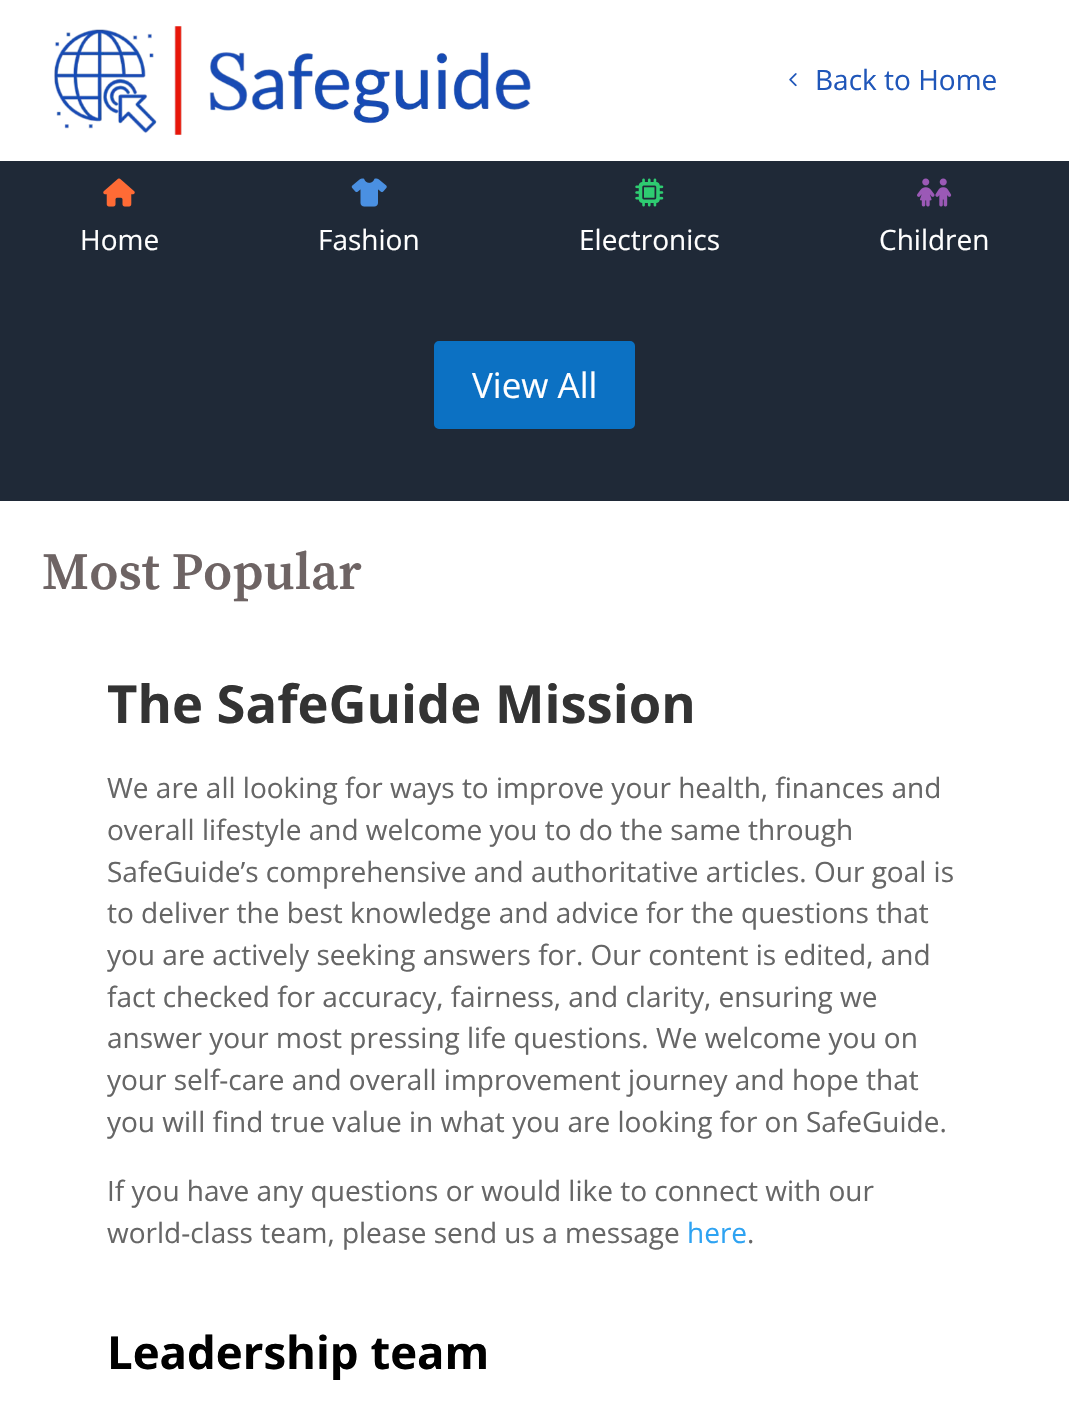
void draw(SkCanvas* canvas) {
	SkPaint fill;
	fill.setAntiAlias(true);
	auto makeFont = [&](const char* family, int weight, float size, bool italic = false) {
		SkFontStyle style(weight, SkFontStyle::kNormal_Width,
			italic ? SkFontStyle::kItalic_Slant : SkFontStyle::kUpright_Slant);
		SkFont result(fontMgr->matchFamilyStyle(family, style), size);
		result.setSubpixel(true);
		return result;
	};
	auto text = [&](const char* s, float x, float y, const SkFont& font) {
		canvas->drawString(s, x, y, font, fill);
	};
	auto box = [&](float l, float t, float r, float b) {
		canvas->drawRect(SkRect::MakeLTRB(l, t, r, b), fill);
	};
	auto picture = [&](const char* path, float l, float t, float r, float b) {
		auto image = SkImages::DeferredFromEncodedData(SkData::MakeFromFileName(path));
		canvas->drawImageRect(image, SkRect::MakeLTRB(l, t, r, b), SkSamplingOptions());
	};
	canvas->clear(0xFFFFFFFF);
	picture("image0.png", 54, 26, 531, 135);
	picture("image1.png", 789, 73, 797, 87);
	fill.setColor(0xFF1F2937);
	box(0, 161, 1069, 501);
	picture("image2.png", 103, 178, 135, 207);
	picture("image3.png", 351, 178, 387, 207);
	picture("image4.png", 635, 178, 664, 207);
	picture("image5.png", 917, 178, 952, 207);
	fill.setColor(0xFF0C71C3);
	canvas->drawRoundRect(SkRect::MakeLTRB(436, 343, 633, 427), 3, 3, fill);
	fill.setStyle(SkPaint::kStroke_Style);
	fill.setStrokeWidth(4);
	fill.setColor(0xFF0A71C3);
	canvas->drawRoundRect(SkRect::MakeLTRB(436, 343, 633, 427), 3, 3, fill);
	auto font1 = makeFont("Open Sans", 400, 28);
	fill.setStyle(SkPaint::kFill_Style);
	fill.setColor(0xFF1F56B9);
	text("Back to Home", 815, 90, font1);
	fill.setColor(0xFFFFFFFF);
	text("Home", 80, 250, font1);
	text("Fashion", 318, 250, font1);
	text("Electronics", 579, 250, font1);
	text("Children", 879, 250, font1);
	auto font2 = makeFont("Open Sans", 400, 35);
	text("View All", 472, 398, font2);
	auto font3 = makeFont("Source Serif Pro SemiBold", 600, 52.5f);
	fill.setColor(0xFF6E6464);
	text("Most Popular", 42, 589, font3);
	auto font4 = makeFont("Open Sans", 700, 52.5f);
	fill.setColor(0xFF333333);
	text("The SafeGuide Mission", 107, 723, font4);
	fill.setColor(0xFF666666);
	text("We are all looking for ways to improve your health, finances and", 107, 798, font1);
	text("overall lifestyle and welcome you to do the same through", 107, 840, font1);
	text("SafeGuide’s comprehensive and authoritative articles. Our goal is", 107, 882, font1);
	text("to deliver the best knowledge and advice for the questions that", 107, 923, font1);
	text("you are actively seeking answers for. Our content is edited, and", 107, 965, font1);
	text("fact checked for accuracy, fairness, and clarity, ensuring we", 107, 1007, font1);
	text("answer your most pressing life questions. We welcome you on", 107, 1048, font1);
	text("your self-care and overall improvement journey and hope that", 107, 1090, font1);
	text("you will find true value in what you are looking for on SafeGuide.", 107, 1132, font1);
	text("If you have any questions or would like to connect with our", 107, 1201, font1);
	text("world-class team, please send us a message", 107, 1243, font1);
	fill.setColor(0xFF2EA3F2);
	text("here", 687, 1243, font1);
	fill.setColor(0xFF666666);
	text(".", 747, 1243, font1);
	auto font5 = makeFont("Open Sans", 700, 45.5f);
	fill.setColor(0xFF000000);
	text("Leadership team", 107, 1369, font5);
}
